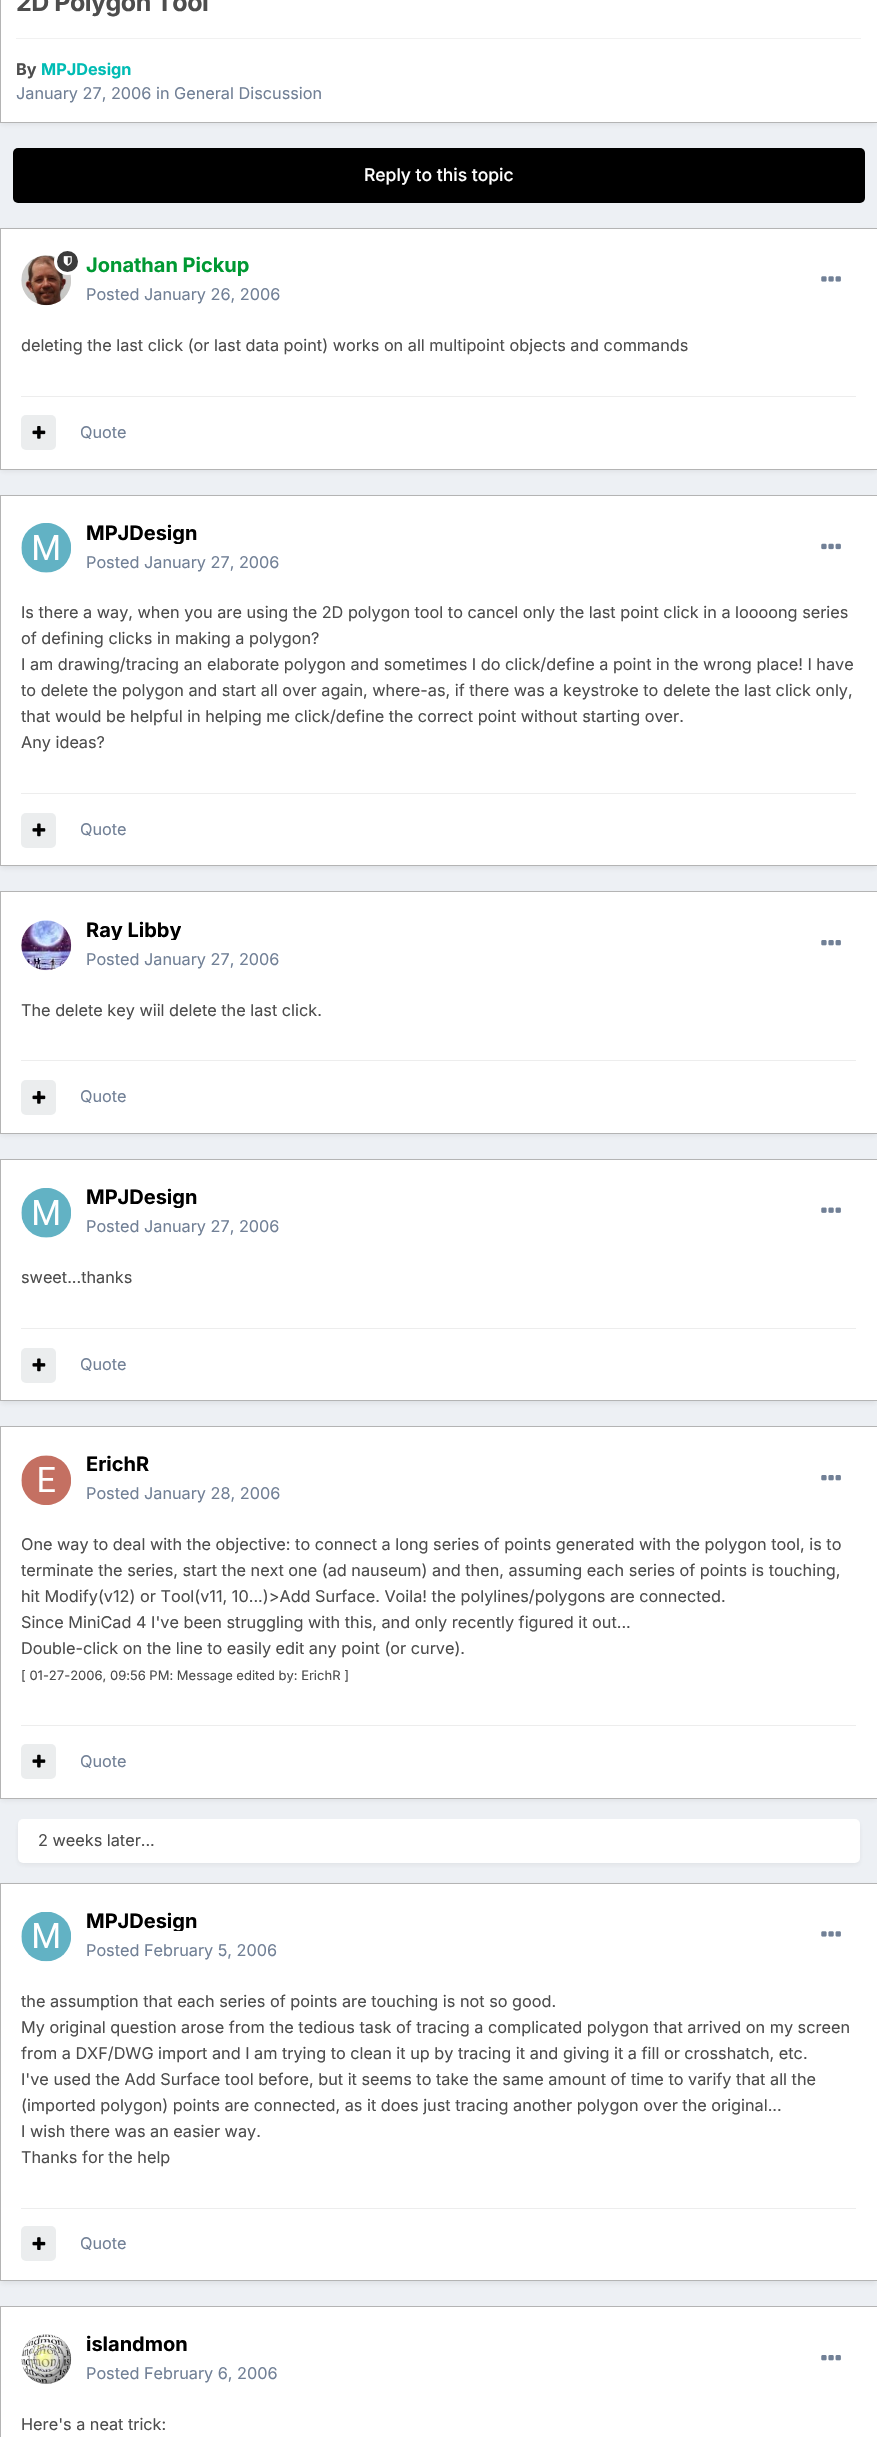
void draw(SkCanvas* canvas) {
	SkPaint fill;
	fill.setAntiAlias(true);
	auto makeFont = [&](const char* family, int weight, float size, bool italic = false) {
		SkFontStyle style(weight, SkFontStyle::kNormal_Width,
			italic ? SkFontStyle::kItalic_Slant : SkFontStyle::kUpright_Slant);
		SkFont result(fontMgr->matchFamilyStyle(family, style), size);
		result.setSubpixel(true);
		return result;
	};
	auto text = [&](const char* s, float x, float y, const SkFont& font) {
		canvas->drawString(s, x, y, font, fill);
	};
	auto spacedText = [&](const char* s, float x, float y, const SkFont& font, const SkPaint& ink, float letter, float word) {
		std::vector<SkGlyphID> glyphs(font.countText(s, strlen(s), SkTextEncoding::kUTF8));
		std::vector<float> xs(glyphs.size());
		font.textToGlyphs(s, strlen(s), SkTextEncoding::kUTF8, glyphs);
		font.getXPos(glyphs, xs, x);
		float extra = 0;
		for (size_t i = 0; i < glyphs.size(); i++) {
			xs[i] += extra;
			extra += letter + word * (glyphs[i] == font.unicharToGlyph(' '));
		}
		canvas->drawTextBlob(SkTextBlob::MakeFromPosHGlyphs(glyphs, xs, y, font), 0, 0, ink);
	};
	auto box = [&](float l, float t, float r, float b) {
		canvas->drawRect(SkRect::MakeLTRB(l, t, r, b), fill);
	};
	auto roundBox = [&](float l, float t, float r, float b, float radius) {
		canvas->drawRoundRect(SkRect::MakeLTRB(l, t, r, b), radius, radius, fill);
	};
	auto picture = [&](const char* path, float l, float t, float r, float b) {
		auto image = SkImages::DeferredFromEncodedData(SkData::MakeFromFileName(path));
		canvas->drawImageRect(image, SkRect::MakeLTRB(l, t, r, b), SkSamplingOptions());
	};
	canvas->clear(0xFFEDF0F4);
	fill.setColor(0x1A3B3B3B);
	fill.setMaskFilter(SkMaskFilter::MakeBlur(kNormal_SkBlurStyle, 2.5f));
	canvas->drawRect(SkRect::MakeLTRB(1, -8, 876, 124), fill);
	fill.setMaskFilter(nullptr);
	fill.setColor(0xFFFFFFFF);
	canvas->drawRect(SkRect::MakeLTRB(0.5f, -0.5f, 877.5f, 122.5f), fill);
	fill.setStyle(SkPaint::kStroke_Style);
	fill.setStrokeWidth(1);
	fill.setColor(0xFFB4B4B4);
	canvas->drawRect(SkRect::MakeLTRB(0.5f, -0.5f, 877.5f, 122.5f), fill);
	fill.setStyle(SkPaint::kFill_Style);
	fill.setColor(0xFFF1F1F1);
	box(16, 38, 861, 39);
	fill.setColor(0xFF000000);
	roundBox(13, 148, 865, 203, 5);
	fill.setColor(0x1A3B3B3B);
	fill.setMaskFilter(SkMaskFilter::MakeBlur(kNormal_SkBlurStyle, 2.5f));
	canvas->drawRect(SkRect::MakeLTRB(1, 231, 876, 471), fill);
	fill.setMaskFilter(nullptr);
	fill.setColor(0xFFFFFFFF);
	canvas->drawRect(SkRect::MakeLTRB(0.5f, 228.5f, 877.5f, 469.5f), fill);
	fill.setStyle(SkPaint::kStroke_Style);
	fill.setColor(0xFFB4B4B4);
	canvas->drawRect(SkRect::MakeLTRB(0.5f, 228.5f, 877.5f, 469.5f), fill);
	picture("image1.png", 21, 255, 71, 306);
	fill.setStyle(SkPaint::kFill_Style);
	fill.setColor(0xFF3B3B3B);
	canvas->drawCircle(67.5f, 261.5f, 12, fill);
	fill.setStyle(SkPaint::kStroke_Style);
	fill.setStrokeWidth(3);
	fill.setColor(0xFFFFFFFF);
	canvas->drawCircle(67.5f, 261.5f, 12, fill);
	picture("image0.png", 63, 256, 72, 266);
	picture("image2.png", 821, 276, 841, 282);
	fill.setStyle(SkPaint::kFill_Style);
	fill.setColor(0xFFEDEDED);
	box(21, 396, 856, 397);
	fill.setColor(0xFFEBEDEE);
	roundBox(21, 415, 56, 450, 5);
	picture("image3.png", 32, 426, 46, 439);
	fill.setColor(0x1A3B3B3B);
	fill.setMaskFilter(SkMaskFilter::MakeBlur(kNormal_SkBlurStyle, 2.5f));
	canvas->drawRect(SkRect::MakeLTRB(1, 499, 876, 868), fill);
	fill.setMaskFilter(nullptr);
	fill.setColor(0xFFFFFFFF);
	canvas->drawRect(SkRect::MakeLTRB(0.5f, 495.5f, 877.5f, 865.5f), fill);
	fill.setStyle(SkPaint::kStroke_Style);
	fill.setStrokeWidth(1);
	fill.setColor(0xFFB4B4B4);
	canvas->drawRect(SkRect::MakeLTRB(0.5f, 495.5f, 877.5f, 865.5f), fill);
	picture("image4.png", 21, 523, 71, 573);
	picture("image5.png", 821, 543, 841, 550);
	fill.setStyle(SkPaint::kFill_Style);
	fill.setColor(0xFFEDEDED);
	box(21, 793, 856, 794);
	fill.setColor(0xFFEBEDEE);
	roundBox(21, 813, 56, 848, 5);
	picture("image6.png", 32, 823, 46, 837);
	fill.setColor(0x1A3B3B3B);
	fill.setMaskFilter(SkMaskFilter::MakeBlur(kNormal_SkBlurStyle, 2.5f));
	canvas->drawRect(SkRect::MakeLTRB(1, 895, 876, 1135), fill);
	fill.setMaskFilter(nullptr);
	fill.setColor(0xFFFFFFFF);
	canvas->drawRect(SkRect::MakeLTRB(0.5f, 891.5f, 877.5f, 1133.5f), fill);
	fill.setStyle(SkPaint::kStroke_Style);
	fill.setColor(0xFFB4B4B4);
	canvas->drawRect(SkRect::MakeLTRB(0.5f, 891.5f, 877.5f, 1133.5f), fill);
	picture("image7.png", 21, 920, 72, 971);
	picture("image8.png", 821, 940, 841, 946);
	fill.setStyle(SkPaint::kFill_Style);
	fill.setColor(0xFFEDEDED);
	box(21, 1060, 856, 1061);
	fill.setColor(0xFFEBEDEE);
	roundBox(21, 1080, 56, 1115, 5);
	picture("image3.png", 32, 1091, 46, 1104);
	fill.setColor(0x1A3B3B3B);
	fill.setMaskFilter(SkMaskFilter::MakeBlur(kNormal_SkBlurStyle, 2.5f));
	canvas->drawRect(SkRect::MakeLTRB(1, 1163, 876, 1403), fill);
	fill.setMaskFilter(nullptr);
	fill.setColor(0xFFFFFFFF);
	canvas->drawRect(SkRect::MakeLTRB(0.5f, 1159.5f, 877.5f, 1400.5f), fill);
	fill.setStyle(SkPaint::kStroke_Style);
	fill.setColor(0xFFB4B4B4);
	canvas->drawRect(SkRect::MakeLTRB(0.5f, 1159.5f, 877.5f, 1400.5f), fill);
	picture("image4.png", 21, 1188, 71, 1238);
	picture("image9.png", 821, 1207, 841, 1213);
	fill.setStyle(SkPaint::kFill_Style);
	fill.setColor(0xFFEDEDED);
	box(21, 1328, 856, 1329);
	fill.setColor(0xFFEBEDEE);
	roundBox(21, 1348, 56, 1383, 5);
	picture("image6.png", 32, 1358, 46, 1372);
	fill.setColor(0x1A3B3B3B);
	fill.setMaskFilter(SkMaskFilter::MakeBlur(kNormal_SkBlurStyle, 2.5f));
	canvas->drawRect(SkRect::MakeLTRB(1, 1430, 876, 1800), fill);
	fill.setMaskFilter(nullptr);
	fill.setColor(0xFFFFFFFF);
	canvas->drawRect(SkRect::MakeLTRB(0.5f, 1426.5f, 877.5f, 1798.5f), fill);
	fill.setStyle(SkPaint::kStroke_Style);
	fill.setColor(0xFFB4B4B4);
	canvas->drawRect(SkRect::MakeLTRB(0.5f, 1426.5f, 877.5f, 1798.5f), fill);
	picture("image10.png", 21, 1455, 71, 1505);
	picture("image8.png", 821, 1475, 841, 1481);
	fill.setStyle(SkPaint::kFill_Style);
	fill.setColor(0xFFEDEDED);
	box(21, 1725, 856, 1726);
	fill.setColor(0xFFEBEDEE);
	roundBox(21, 1744, 56, 1779, 5);
	picture("image11.png", 32, 1754, 46, 1768);
	fill.setColor(0x1A3B3B3B);
	fill.setMaskFilter(SkMaskFilter::MakeBlur(kNormal_SkBlurStyle, 2.5f));
	canvas->drawRoundRect(SkRect::MakeLTRB(19, 1823, 859, 1864), 4, 4, fill);
	fill.setMaskFilter(nullptr);
	fill.setColor(0xFFFFFFFF);
	roundBox(18, 1819, 860, 1863, 5);
	fill.setColor(0x1A3B3B3B);
	fill.setMaskFilter(SkMaskFilter::MakeBlur(kNormal_SkBlurStyle, 2.5f));
	canvas->drawRect(SkRect::MakeLTRB(1, 1886, 876, 2283), fill);
	fill.setMaskFilter(nullptr);
	fill.setColor(0xFFFFFFFF);
	canvas->drawRect(SkRect::MakeLTRB(0.5f, 1883.5f, 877.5f, 2280.5f), fill);
	fill.setStyle(SkPaint::kStroke_Style);
	fill.setColor(0xFFB4B4B4);
	canvas->drawRect(SkRect::MakeLTRB(0.5f, 1883.5f, 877.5f, 2280.5f), fill);
	picture("image12.png", 21, 1912, 71, 1962);
	picture("image2.png", 821, 1931, 841, 1937);
	fill.setStyle(SkPaint::kFill_Style);
	fill.setColor(0xFFEDEDED);
	box(21, 2208, 856, 2209);
	fill.setColor(0xFFEBEDEE);
	roundBox(21, 2226, 56, 2261, 5);
	picture("image13.png", 32, 2237, 46, 2250);
	fill.setColor(0xFFFFFFFF);
	canvas->drawRect(SkRect::MakeLTRB(0.5f, 2306.5f, 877.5f, 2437.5f), fill);
	fill.setStyle(SkPaint::kStroke_Style);
	fill.setColor(0xFFB4B4B4);
	canvas->drawRect(SkRect::MakeLTRB(0.5f, 2306.5f, 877.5f, 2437.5f), fill);
	picture("image14.png", 21, 2334, 72, 2384);
	picture("image8.png", 821, 2355, 841, 2361);
	auto font1 = makeFont("Inter", 700, 25);
	fill.setStyle(SkPaint::kFill_Style);
	fill.setColor(0xFF4D4D4D);
	spacedText("2D Polygon Tool", 16, 11, font1, fill, -0.5f, 0);
	auto font2 = makeFont("Inter", 700, 16.25f);
	text("By", 16, 75, font2);
	fill.setColor(0xFF00BCB4);
	text("MPJDesign", 41, 75, font2);
	auto font3 = makeFont("Inter", 400, 16.25f);
	fill.setColor(0xFF718096);
	text("January 27, 2006 in General Discussion", 16, 99, font3);
	auto font4 = makeFont("Inter", 500, 17.5f);
	fill.setColor(0xFFFFFFFF);
	text("Reply to this topic", 364, 181, font4);
	auto font5 = makeFont("Inter", 700, 20);
	fill.setColor(0xFF009933);
	text("Jonathan Pickup", 86, 272, font5);
	fill.setColor(0xFF718096);
	text("Posted January 26, 2006", 86, 300, font3);
	fill.setColor(0xFF4D4D4D);
	text("deleting the last click (or last data point) works on all multipoint objects and commands", 21, 351, font3);
	fill.setColor(0xFF718096);
	text("Quote", 80, 438, font3);
	canvas->save();
	canvas->clipRect(SkRect::MakeLTRB(86, 521, 198, 544));
	fill.setColor(0xFF000000);
	text("MPJDesign", 86, 540, font5);
	canvas->restore();
	fill.setColor(0xFF718096);
	text("Posted January 27, 2006", 86, 568, font3);
	fill.setColor(0xFF4D4D4D);
	text("Is there a way, when you are using the 2D polygon tool to cancel only the last point click in a loooong series", 21, 618, font3);
	text("of defining clicks in making a polygon?", 21, 644, font3);
	text("I am drawing/tracing an elaborate polygon and sometimes I do click/define a point in the wrong place! I have", 21, 670, font3);
	text("to delete the polygon and start all over again, where-as, if there was a keystroke to delete the last click only,", 21, 696, font3);
	text("that would be helpful in helping me click/define the correct point without starting over.", 21, 722, font3);
	text("Any ideas?", 21, 748, font3);
	fill.setColor(0xFF718096);
	text("Quote", 80, 835, font3);
	canvas->save();
	canvas->clipRect(SkRect::MakeLTRB(86, 918, 181, 940));
	fill.setColor(0xFF000000);
	text("Ray Libby", 86, 937, font5);
	canvas->restore();
	fill.setColor(0xFF718096);
	text("Posted January 27, 2006", 86, 965, font3);
	fill.setColor(0xFF4D4D4D);
	text("The delete key wiil delete the last click.", 21, 1016, font3);
	fill.setColor(0xFF718096);
	text("Quote", 80, 1102, font3);
	canvas->save();
	canvas->clipRect(SkRect::MakeLTRB(86, 1185, 198, 1208));
	fill.setColor(0xFF000000);
	text("MPJDesign", 86, 1204, font5);
	canvas->restore();
	fill.setColor(0xFF718096);
	text("Posted January 27, 2006", 86, 1232, font3);
	fill.setColor(0xFF4D4D4D);
	text("sweet...thanks", 21, 1283, font3);
	fill.setColor(0xFF718096);
	text("Quote", 80, 1370, font3);
	fill.setColor(0xFF000000);
	text("ErichR", 86, 1471, font5);
	fill.setColor(0xFF718096);
	text("Posted January 28, 2006", 86, 1499, font3);
	fill.setColor(0xFF4D4D4D);
	text("One way to deal with the objective: to connect a long series of points generated with the polygon tool, is to", 21, 1550, font3);
	text("terminate the series, start the next one (ad nauseum) and then, assuming each series of points is touching,", 21, 1576, font3);
	text("hit Modify(v12) or Tool(v11, 10...)>Add Surface. Voila! the polylines/polygons are connected.", 21, 1602, font3);
	text("Since MiniCad 4 I've been struggling with this, and only recently figured it out...", 21, 1628, font3);
	text("Double-click on the line to easily edit any point (or curve).", 21, 1654, font3);
	auto font6 = makeFont("Inter", 400, 13);
	text("[ 01-27-2006, 09:56 PM: Message edited by: ErichR ]", 21, 1680, font6);
	fill.setColor(0xFF718096);
	text("Quote", 80, 1767, font3);
	fill.setColor(0xFF4D4D4D);
	text("2 weeks later...", 38, 1846, font3);
	canvas->save();
	canvas->clipRect(SkRect::MakeLTRB(86, 1909, 198, 1931));
	fill.setColor(0xFF000000);
	text("MPJDesign", 86, 1928, font5);
	canvas->restore();
	fill.setColor(0xFF718096);
	text("Posted February 5, 2006", 86, 1956, font3);
	fill.setColor(0xFF4D4D4D);
	text("the assumption that each series of points are touching is not so good.", 21, 2007, font3);
	text("My original question arose from the tedious task of tracing a complicated polygon that arrived on my screen", 21, 2033, font3);
	text("from a DXF/DWG import and I am trying to clean it up by tracing it and giving it a fill or crosshatch, etc.", 21, 2059, font3);
	text("I've used the Add Surface tool before, but it seems to take the same amount of time to varify that all the", 21, 2085, font3);
	text("(imported polygon) points are connected, as it does just tracing another polygon over the original...", 21, 2111, font3);
	text("I wish there was an easier way.", 21, 2137, font3);
	text("Thanks for the help", 21, 2163, font3);
	fill.setColor(0xFF718096);
	text("Quote", 80, 2249, font3);
	fill.setColor(0xFF000000);
	text("islandmon", 86, 2351, font5);
	fill.setColor(0xFF718096);
	text("Posted February 6, 2006", 86, 2379, font3);
	fill.setColor(0xFF4D4D4D);
	text("Here's a neat trick:", 21, 2430, font3);
}
